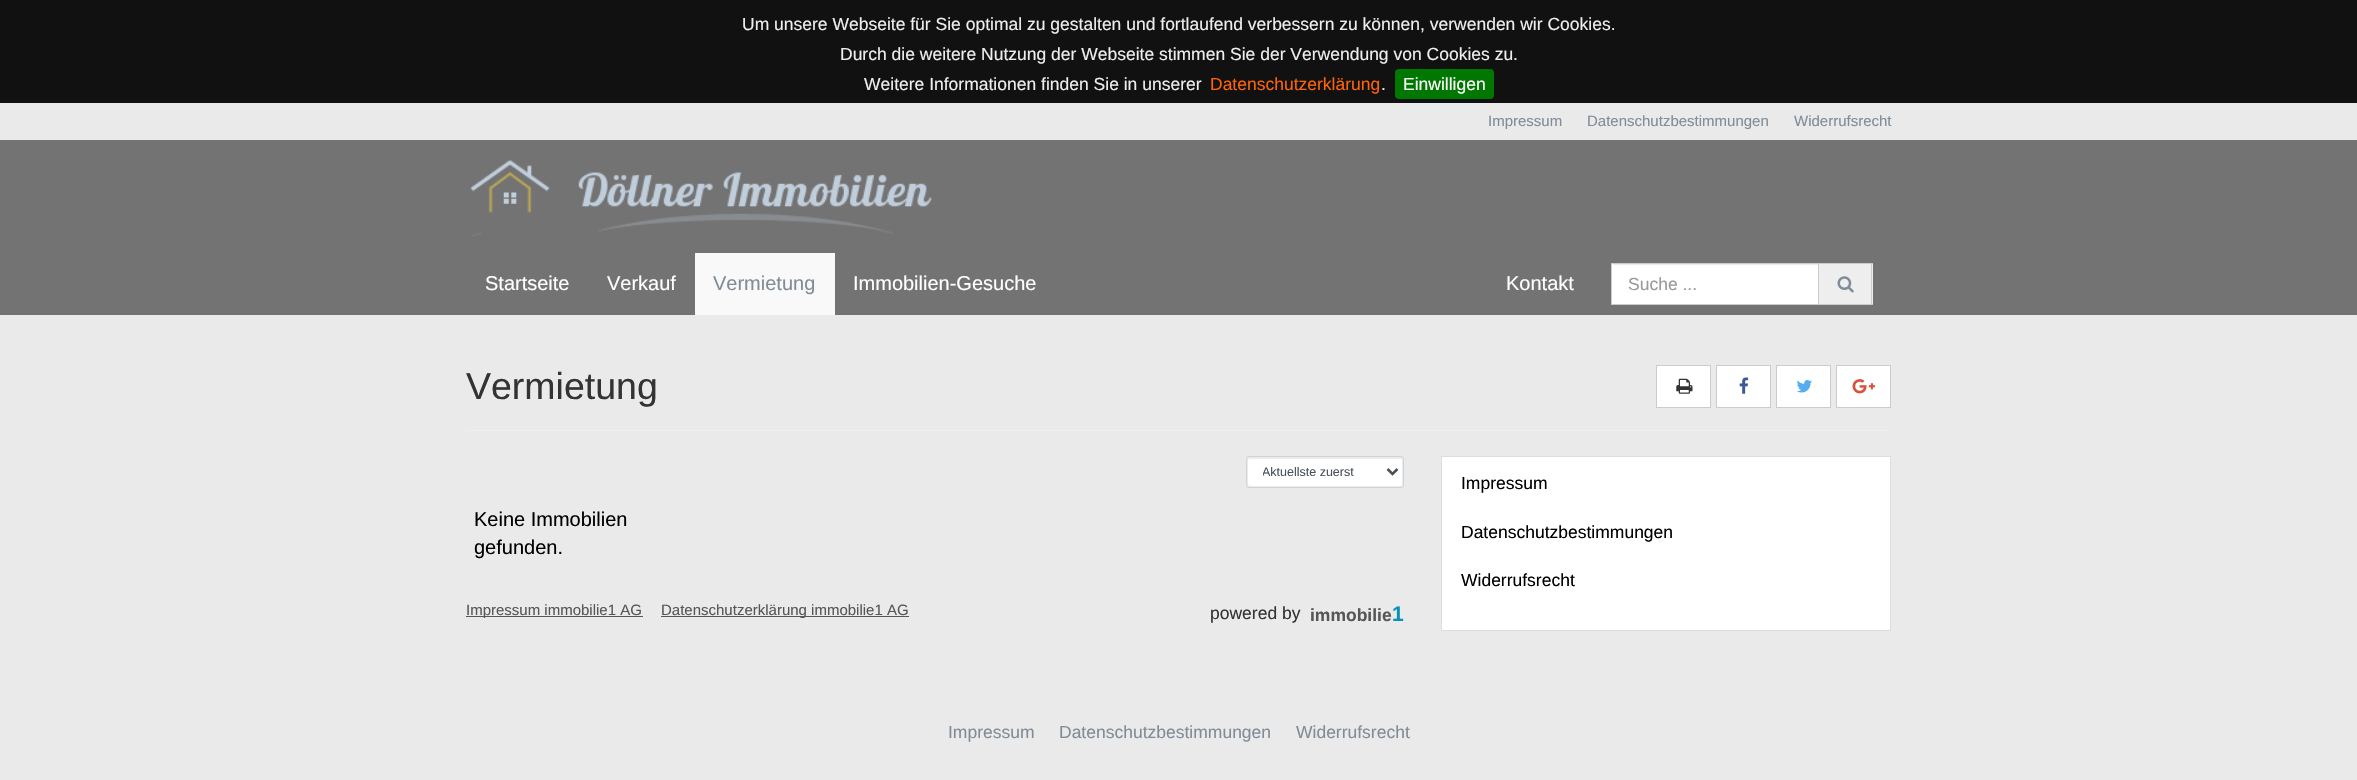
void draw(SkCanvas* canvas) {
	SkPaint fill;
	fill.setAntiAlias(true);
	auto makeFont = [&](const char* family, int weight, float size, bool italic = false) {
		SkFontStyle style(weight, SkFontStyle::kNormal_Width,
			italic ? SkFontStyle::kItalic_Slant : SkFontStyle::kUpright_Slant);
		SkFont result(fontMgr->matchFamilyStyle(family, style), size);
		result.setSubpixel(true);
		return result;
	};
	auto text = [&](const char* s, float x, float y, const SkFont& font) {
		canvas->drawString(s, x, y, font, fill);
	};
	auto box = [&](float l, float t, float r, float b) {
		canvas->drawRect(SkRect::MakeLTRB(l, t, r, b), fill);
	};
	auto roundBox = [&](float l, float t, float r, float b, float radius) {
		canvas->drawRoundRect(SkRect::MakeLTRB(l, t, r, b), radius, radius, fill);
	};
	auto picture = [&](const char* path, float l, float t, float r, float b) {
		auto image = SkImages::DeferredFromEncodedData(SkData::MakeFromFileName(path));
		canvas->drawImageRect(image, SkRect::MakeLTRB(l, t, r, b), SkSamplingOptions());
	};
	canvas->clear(0xFFEAEAEA);
	fill.setColor(0xFF111111);
	box(0, 0, 2357, 103);
	fill.setColor(0xFF007700);
	roundBox(1395, 69, 1494, 99, 4);
	fill.setColor(0xFF737373);
	box(0, 140, 2357, 315);
	picture("image0.png", 470, 160, 932, 236);
	fill.setColor(0xFFF9F9F9);
	box(695, 253, 835, 315);
	fill.setColor(0xFFFFFFFF);
	box(1612, 264, 1818, 304);
	fill.setColor(0xFFECECEC);
	box(1613, 264, 1818, 265);
	fill.setStyle(SkPaint::kStroke_Style);
	fill.setStrokeWidth(1);
	fill.setColor(0xFFCCCCCC);
	canvas->drawRect(SkRect::MakeLTRB(1611.5f, 263.5f, 1818.5f, 304.5f), fill);
	fill.setStyle(SkPaint::kFill_Style);
	fill.setColor(0xFFEEEEEE);
	box(1819, 264, 1873, 304);
	fill.setColor(0xFFCCCCCC);
	box(1819, 263, 1873, 264);
	box(1871, 263, 1872, 305);
	box(1819, 304, 1873, 305);
	picture("image1.png", 1837, 276, 1854, 293);
	fill.setColor(0xFFEEEEEE);
	box(466, 430, 1891, 431);
	fill.setColor(0xFFFFFFFF);
	canvas->drawRect(SkRect::MakeLTRB(1656.5f, 365.5f, 1710.5f, 407.5f), fill);
	fill.setStyle(SkPaint::kStroke_Style);
	fill.setColor(0xFFCCCCCC);
	canvas->drawRect(SkRect::MakeLTRB(1656.5f, 365.5f, 1710.5f, 407.5f), fill);
	picture("image2.png", 1676, 378, 1693, 394);
	fill.setStyle(SkPaint::kFill_Style);
	fill.setColor(0xFFFFFFFF);
	canvas->drawRect(SkRect::MakeLTRB(1716.5f, 365.5f, 1770.5f, 407.5f), fill);
	fill.setStyle(SkPaint::kStroke_Style);
	fill.setColor(0xFFCCCCCC);
	canvas->drawRect(SkRect::MakeLTRB(1716.5f, 365.5f, 1770.5f, 407.5f), fill);
	picture("image3.png", 1739, 377, 1749, 394);
	fill.setStyle(SkPaint::kFill_Style);
	fill.setColor(0xFFFFFFFF);
	canvas->drawRect(SkRect::MakeLTRB(1776.5f, 365.5f, 1830.5f, 407.5f), fill);
	fill.setStyle(SkPaint::kStroke_Style);
	fill.setColor(0xFFCCCCCC);
	canvas->drawRect(SkRect::MakeLTRB(1776.5f, 365.5f, 1830.5f, 407.5f), fill);
	picture("image4.png", 1796, 380, 1812, 393);
	fill.setStyle(SkPaint::kFill_Style);
	fill.setColor(0xFFFFFFFF);
	canvas->drawRect(SkRect::MakeLTRB(1836.5f, 365.5f, 1890.5f, 407.5f), fill);
	fill.setStyle(SkPaint::kStroke_Style);
	fill.setColor(0xFFCCCCCC);
	canvas->drawRect(SkRect::MakeLTRB(1836.5f, 365.5f, 1890.5f, 407.5f), fill);
	picture("image5.png", 1852, 379, 1875, 394);
	fill.setStyle(SkPaint::kFill_Style);
	fill.setColor(0xFFFFFFFF);
	roundBox(1248, 458, 1403, 486, 2);
	fill.setColor(0xFFECECEC);
	canvas->drawPath(SkPathBuilder().moveTo(1249, 459).lineTo(1401, 459).cubicTo(1402, 459, 1402, 460, 1402, 461).lineTo(1402, 486).cubicTo(1403, 485, 1403, 485, 1403, 484).lineTo(1403, 460).cubicTo(1403, 459, 1402, 458, 1401, 458).lineTo(1250, 458).cubicTo(1249, 458, 1248, 459, 1248, 460).lineTo(1248, 461).cubicTo(1248, 460, 1248, 459, 1249, 459).close().detach(), fill);
	fill.setStyle(SkPaint::kStroke_Style);
	fill.setColor(0xFFCED4DA);
	canvas->drawRoundRect(SkRect::MakeLTRB(1246.5f, 456.5f, 1403.5f, 487.5f), 2.5f, 2.5f, fill);
	fill.setStrokeWidth(2.5f);
	fill.setColor(0xFF495057);
	canvas->drawPath(SkPathBuilder().moveTo(1387.5f, 469).lineTo(1392.5f, 474).lineTo(1397.5f, 469).detach(), fill);
	fill.setStyle(SkPaint::kFill_Style);
	fill.setColor(0xFF575656);
	box(466, 616, 643, 617);
	box(661, 616, 909, 617);
	fill.setColor(0xFFFFFFFF);
	canvas->drawRect(SkRect::MakeLTRB(1441.5f, 456.5f, 1890.5f, 630.5f), fill);
	fill.setStyle(SkPaint::kStroke_Style);
	fill.setStrokeWidth(1);
	fill.setColor(0xFFDDDDDD);
	canvas->drawRect(SkRect::MakeLTRB(1441.5f, 456.5f, 1890.5f, 630.5f), fill);
	auto font1 = makeFont("Liberation Sans", 400, 17.5f);
	fill.setStyle(SkPaint::kFill_Style);
	fill.setColor(0xFFEEEEEE);
	text("Um unsere Webseite für Sie optimal zu gestalten und fortlaufend verbessern zu können, verwenden wir Cookies.", 742, 30, font1);
	text("Durch die weitere Nutzung der Webseite stimmen Sie der Verwendung von Cookies zu.", 840, 60, font1);
	text("Weitere Informationen finden Sie in unserer", 864, 90, font1);
	fill.setColor(0xFFFF6308);
	text("Datenschutzerklärung", 1210, 90, font1);
	fill.setColor(0xFFEEEEEE);
	text(".", 1381, 90, font1);
	fill.setColor(0xFFFFFFFF);
	text("Einwilligen", 1403, 90, font1);
	auto font2 = makeFont("Liberation Sans", 400, 15);
	fill.setColor(0xFF808C97);
	text("Impressum", 1488, 126, font2);
	text("Datenschutzbestimmungen", 1587, 126, font2);
	text("Widerrufsrecht", 1794, 126, font2);
	auto font3 = makeFont("Liberation Sans", 400, 20);
	fill.setColor(0xFFFFFFFF);
	text("Startseite", 485, 290, font3);
	text("Verkauf", 607, 290, font3);
	fill.setColor(0xFF808C97);
	text("Vermietung", 713, 290, font3);
	fill.setColor(0xFFFFFFFF);
	text("Immobilien-Gesuche", 853, 290, font3);
	text("Kontakt", 1506, 290, font3);
	fill.setColor(0xFF999999);
	text("Suche ...", 1628, 290, font1);
	auto font4 = makeFont("Liberation Sans", 400, 37.5f);
	fill.setColor(0xFF333333);
	text("Vermietung", 466, 399, font4);
	canvas->save();
	canvas->clipRect(SkRect::MakeLTRB(1263, 464, 1374, 480));
	auto font5 = makeFont("Liberation Sans", 400, 12.5f);
	fill.setColor(0xFF495057);
	text("Aktuellste zuerst", 1262, 476, font5);
	canvas->restore();
	fill.setColor(0xFF000000);
	text("Keine Immobilien", 474, 526, font3);
	text("gefunden.", 474, 554, font3);
	fill.setColor(0xFF575656);
	text("Impressum immobilie1 AG", 466, 615, font2);
	text("Datenschutzerklärung immobilie1 AG", 661, 615, font2);
	fill.setColor(0xFF333333);
	text("powered by", 1210, 619, font1);
	auto font6 = makeFont("Liberation Sans", 700, 17.5f);
	fill.setColor(0xFF575656);
	text("immobilie", 1310, 621, font6);
	auto font7 = makeFont("Liberation Sans", 700, 21);
	fill.setColor(0xFF0792B7);
	text("1", 1392, 621, font7);
	fill.setColor(0xFF000000);
	text("Impressum", 1461, 489, font1);
	text("Datenschutzbestimmungen", 1461, 538, font1);
	text("Widerrufsrecht", 1461, 586, font1);
	fill.setColor(0xFF808C97);
	text("Impressum", 948, 738, font1);
	text("Datenschutzbestimmungen", 1059, 738, font1);
	text("Widerrufsrecht", 1296, 738, font1);
}
